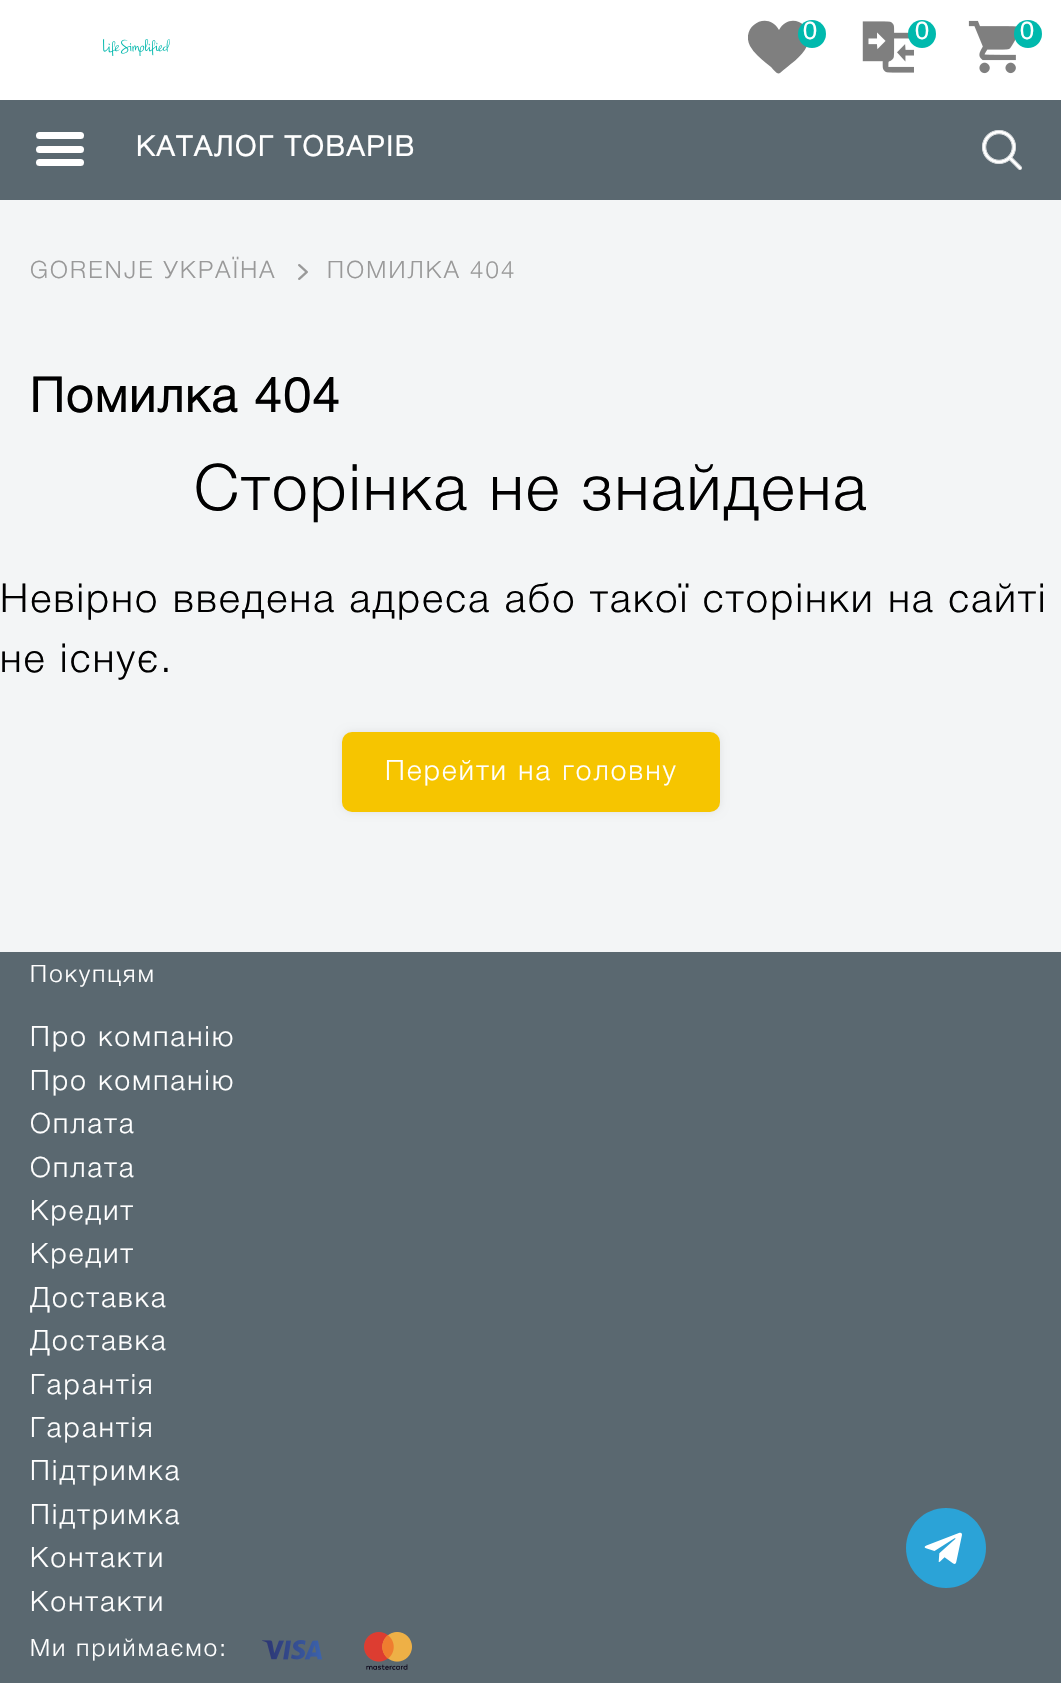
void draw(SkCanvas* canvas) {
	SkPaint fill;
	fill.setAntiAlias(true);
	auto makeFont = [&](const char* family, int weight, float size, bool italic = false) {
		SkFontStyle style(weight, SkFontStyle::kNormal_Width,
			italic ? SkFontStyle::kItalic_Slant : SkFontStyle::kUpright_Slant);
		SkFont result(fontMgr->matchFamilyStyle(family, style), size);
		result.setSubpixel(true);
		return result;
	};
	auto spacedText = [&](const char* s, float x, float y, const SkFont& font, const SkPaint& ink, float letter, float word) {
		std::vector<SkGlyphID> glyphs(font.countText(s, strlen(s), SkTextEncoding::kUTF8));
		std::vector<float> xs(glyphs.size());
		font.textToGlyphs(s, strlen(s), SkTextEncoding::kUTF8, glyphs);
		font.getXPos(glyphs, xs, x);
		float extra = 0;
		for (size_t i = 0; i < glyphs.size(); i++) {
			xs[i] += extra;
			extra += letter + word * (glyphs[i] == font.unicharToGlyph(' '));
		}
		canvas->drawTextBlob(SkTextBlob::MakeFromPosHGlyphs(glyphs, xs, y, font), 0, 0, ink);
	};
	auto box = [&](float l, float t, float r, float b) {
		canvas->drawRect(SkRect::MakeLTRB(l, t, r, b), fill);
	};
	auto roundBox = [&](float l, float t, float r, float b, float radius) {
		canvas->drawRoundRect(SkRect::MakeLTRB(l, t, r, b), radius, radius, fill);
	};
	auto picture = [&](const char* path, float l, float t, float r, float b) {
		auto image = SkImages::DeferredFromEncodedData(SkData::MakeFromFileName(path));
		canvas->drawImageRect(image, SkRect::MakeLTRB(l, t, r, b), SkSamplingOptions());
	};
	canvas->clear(0xFFF3F5F6);
	fill.setColor(0xFFFFFFFF);
	box(0, 0, 1061, 100);
	canvas->save();
	canvas->clipRect(SkRect::MakeLTRB(748, 18, 810, 76));
	fill.setColor(0xFF7F7F7F);
	canvas->drawPath(SkPathBuilder().moveTo(780, 73).cubicTo(789, 65, 802, 57, 807, 46).cubicTo(817, 26, 790, 10, 779, 30).cubicTo(768, 10, 740, 26, 750, 46).cubicTo(754, 53, 760, 58, 766, 63).lineTo(771, 67).cubicTo(773, 69, 777, 75, 780, 73).close().detach(), fill);
	canvas->restore();
	fill.setColor(0xFF00B9AD);
	canvas->drawCircle(812, 34, 14, fill);
	picture("image0.png", 862, 21, 914, 73);
	canvas->drawCircle(922, 34, 14, fill);
	picture("image1.png", 968, 20, 1017, 74);
	canvas->drawCircle(1028, 34, 14, fill);
	picture("image2.png", 103, 38, 170, 56);
	fill.setColor(0xFF5A6870);
	box(0, 100, 1061, 200);
	fill.setColor(0xFFFFFFFF);
	roundBox(36, 146, 84, 153, 3.5f);
	roundBox(36, 159, 84, 166, 3.5f);
	roundBox(36, 132, 84, 139, 3.5f);
	picture("image3.png", 982, 130, 1022, 170);
	picture("image4.png", 298, 264, 308, 280);
	fill.setColor(0x14000000);
	fill.setMaskFilter(SkMaskFilter::MakeBlur(kNormal_SkBlurStyle, 4));
	canvas->drawRoundRect(SkRect::MakeLTRB(342, 732, 720, 812), 10, 10, fill);
	fill.setMaskFilter(nullptr);
	fill.setColor(0xFFF6C500);
	roundBox(342, 732, 720, 812, 10);
	fill.setColor(0xFF5A6870);
	box(0, 952, 1061, 1683);
	picture("image5.png", 262, 1640, 322, 1660);
	picture("image6.png", 364, 1632, 412, 1670);
	picture("image7.png", 906, 1508, 986, 1588);
	auto font1 = makeFont("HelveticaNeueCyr", 700, 24);
	fill.setColor(0xFFFFFFFF);
	spacedText("0", 803, 39, font1, fill, 2.25f, 0);
	spacedText("0", 915, 39, font1, fill, 2.25f, 0);
	spacedText("0", 1020, 39, font1, fill, 2.25f, 0);
	auto font2 = makeFont("HelveticaNeueCyr", 700, 28);
	spacedText("КАТАЛОГ ТОВАРІВ", 136, 156, font2, fill, 2.25f, 0);
	auto font3 = makeFont("HelveticaNeueCyr", 300, 24);
	fill.setColor(0xFF999999);
	spacedText("GORENJE УКРАЇНА", 30, 278, font3, fill, 2.25f, 0);
	spacedText("ПОМИЛКА 404", 327, 278, font3, fill, 2.25f, 0);
	auto font4 = makeFont("HelveticaNeueCyr", 700, 48);
	fill.setColor(0xFF000000);
	spacedText("Помилка 404", 30, 412, font4, fill, 2.25f, 0);
	auto font5 = makeFont("HelveticaNeueCyr", 300, 64);
	spacedText("Сторінка не знайдена", 194, 510, font5, fill, 2.25f, 0);
	auto font6 = makeFont("HelveticaNeueCyr", 300, 40);
	spacedText("Невірно введена адреса або такої сторінки на сайті", 0, 612, font6, fill, 2.25f, 0);
	spacedText("не існує.", 0, 672, font6, fill, 2.25f, 0);
	auto font7 = makeFont("HelveticaNeueCyr", 300, 28);
	fill.setColor(0xFFFFFFFF);
	spacedText("Перейти на головну", 385, 780, font7, fill, 2.25f, 0);
	spacedText("Покупцям", 30, 982, font3, fill, 2.25f, 0);
	spacedText("Про компанію", 30, 1046, font7, fill, 2.25f, 0);
	spacedText("Про компанію", 30, 1090, font7, fill, 2.25f, 0);
	spacedText("Оплата", 30, 1133, font7, fill, 2.25f, 0);
	spacedText("Оплата", 30, 1177, font7, fill, 2.25f, 0);
	spacedText("Кредит", 30, 1220, font7, fill, 2.25f, 0);
	spacedText("Кредит", 30, 1263, font7, fill, 2.25f, 0);
	spacedText("Доставка", 30, 1307, font7, fill, 2.25f, 0);
	spacedText("Доставка", 30, 1350, font7, fill, 2.25f, 0);
	spacedText("Гарантія", 30, 1394, font7, fill, 2.25f, 0);
	spacedText("Гарантія", 30, 1437, font7, fill, 2.25f, 0);
	spacedText("Підтримка", 30, 1480, font7, fill, 2.25f, 0);
	spacedText("Підтримка", 30, 1524, font7, fill, 2.25f, 0);
	spacedText("Контакти", 30, 1567, font7, fill, 2.25f, 0);
	spacedText("Контакти", 30, 1611, font7, fill, 2.25f, 0);
	spacedText("Ми приймаємо:", 30, 1656, font3, fill, 2.25f, 0);
}
